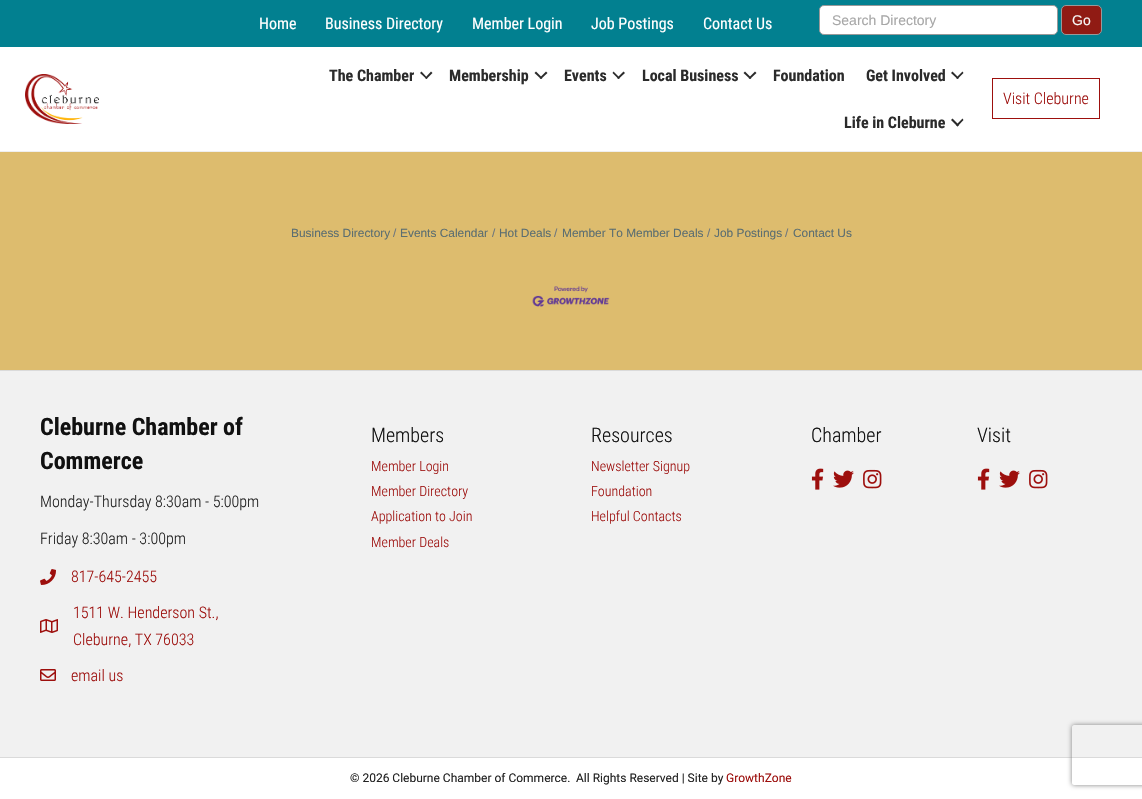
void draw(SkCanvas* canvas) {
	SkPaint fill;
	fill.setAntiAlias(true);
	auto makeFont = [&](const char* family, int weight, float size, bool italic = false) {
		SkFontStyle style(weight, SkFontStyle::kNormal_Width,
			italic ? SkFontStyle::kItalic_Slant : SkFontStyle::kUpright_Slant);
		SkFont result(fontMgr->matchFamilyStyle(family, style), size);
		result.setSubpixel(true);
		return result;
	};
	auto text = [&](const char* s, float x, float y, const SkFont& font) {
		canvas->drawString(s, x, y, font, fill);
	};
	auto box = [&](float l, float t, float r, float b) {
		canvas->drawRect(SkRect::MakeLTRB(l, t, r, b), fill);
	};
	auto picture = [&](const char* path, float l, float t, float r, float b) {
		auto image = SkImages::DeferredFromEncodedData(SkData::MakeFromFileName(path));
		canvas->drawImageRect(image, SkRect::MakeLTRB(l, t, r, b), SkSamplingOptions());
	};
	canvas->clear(0xFFFFFFFF);
	fill.setColor(0xFF028090);
	box(0, 0, 1142, 47);
	fill.setColor(0xFFFFFFFF);
	canvas->drawRoundRect(SkRect::MakeLTRB(819.5f, 5.5f, 1057.5f, 34.5f), 4.5f, 4.5f, fill);
	fill.setStyle(SkPaint::kStroke_Style);
	fill.setStrokeWidth(1);
	fill.setColor(0xFF999999);
	canvas->drawRoundRect(SkRect::MakeLTRB(819.5f, 5.5f, 1057.5f, 34.5f), 4.5f, 4.5f, fill);
	fill.setStyle(SkPaint::kFill_Style);
	fill.setColor(0xFF901B14);
	canvas->drawRoundRect(SkRect::MakeLTRB(1061.5f, 5.5f, 1101.5f, 34.5f), 4.5f, 4.5f, fill);
	fill.setStyle(SkPaint::kStroke_Style);
	fill.setColor(0xFF999999);
	canvas->drawRoundRect(SkRect::MakeLTRB(1061.5f, 5.5f, 1101.5f, 34.5f), 4.5f, 4.5f, fill);
	fill.setStyle(SkPaint::kFill_Style);
	fill.setColor(0xFFEFEFEF);
	box(0, 151, 1142, 152);
	picture("image0.png", 25, 74, 99, 124);
	fill.setColor(0xFF2B2B2B);
	canvas->drawPath(SkPathBuilder().moveTo(431, 71.5f).lineTo(432.5f, 73).lineTo(426.5f, 79).lineTo(425, 78).close().detach(), fill);
	canvas->drawPath(SkPathBuilder().moveTo(421.5f, 71.5f).lineTo(427.5f, 78).lineTo(426.5f, 79).lineTo(420, 73).close().detach(), fill);
	canvas->drawPath(SkPathBuilder().moveTo(546, 71.5f).lineTo(547.5f, 73).lineTo(541, 79).lineTo(539.5f, 78).close().detach(), fill);
	canvas->drawPath(SkPathBuilder().moveTo(536, 71.5f).lineTo(542.5f, 78).lineTo(541, 79).lineTo(534.5f, 73).close().detach(), fill);
	canvas->drawPath(SkPathBuilder().moveTo(623.5f, 71.5f).lineTo(625, 73).lineTo(618.5f, 79).lineTo(617, 78).close().detach(), fill);
	canvas->drawPath(SkPathBuilder().moveTo(613.5f, 71.5f).lineTo(620, 78).lineTo(618.5f, 79).lineTo(612.5f, 73).close().detach(), fill);
	canvas->drawPath(SkPathBuilder().moveTo(755, 71.5f).lineTo(756.5f, 73).lineTo(750, 79).lineTo(748.5f, 78).close().detach(), fill);
	canvas->drawPath(SkPathBuilder().moveTo(745, 71.5f).lineTo(751.5f, 78).lineTo(750, 79).lineTo(743.5f, 73).close().detach(), fill);
	canvas->drawPath(SkPathBuilder().moveTo(962.5f, 71.5f).lineTo(963.5f, 73).lineTo(957.5f, 79).lineTo(956, 78).close().detach(), fill);
	canvas->drawPath(SkPathBuilder().moveTo(952.5f, 71.5f).lineTo(959, 78).lineTo(957.5f, 79).lineTo(951, 73).close().moveTo(962.5f, 118.5f).lineTo(963.5f, 120).lineTo(957.5f, 126.5f).lineTo(956, 125).close().detach(), fill);
	canvas->drawPath(SkPathBuilder().moveTo(952.5f, 118.5f).lineTo(959, 125).lineTo(957.5f, 126.5f).lineTo(951, 120).close().detach(), fill);
	fill.setStyle(SkPaint::kStroke_Style);
	fill.setColor(0xFF9D0F0D);
	canvas->drawRect(SkRect::MakeLTRB(992.5f, 78.5f, 1099.5f, 118.5f), fill);
	fill.setStyle(SkPaint::kFill_Style);
	fill.setColor(0xFFDDBC6E);
	box(0, 152, 1142, 370);
	picture("image1.png", 532, 286, 610, 307);
	fill.setColor(0xFFF1F1F1);
	box(0, 371, 1142, 757);
	fill.setColor(0xFFDADADA);
	box(0, 370, 1142, 371);
	picture("image2.png", 40, 569, 56, 585);
	picture("image3.png", 40, 619, 58, 633);
	picture("image4.png", 40, 669, 56, 681);
	picture("image5.png", 811, 468, 824, 490);
	picture("image6.png", 833, 470, 854, 488);
	picture("image7.png", 863, 469, 882, 489);
	picture("image5.png", 977, 468, 990, 490);
	picture("image6.png", 999, 470, 1020, 488);
	picture("image7.png", 1029, 469, 1048, 489);
	box(0, 757, 1142, 758);
	canvas->save();
	canvas->clipPath(SkPathBuilder(SkPathFillType::kEvenOdd).moveTo(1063, 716).lineTo(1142, 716).lineTo(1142, 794).lineTo(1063, 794).close().moveTo(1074, 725).lineTo(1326, 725).cubicTo(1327, 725, 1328, 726, 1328, 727).lineTo(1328, 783).cubicTo(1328, 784, 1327, 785, 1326, 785).lineTo(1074, 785).cubicTo(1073, 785, 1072, 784, 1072, 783).lineTo(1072, 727).cubicTo(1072, 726, 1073, 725, 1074, 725).close().detach(), true);
	fill.setColor(0xFF808080);
	fill.setMaskFilter(SkMaskFilter::MakeBlur(kNormal_SkBlurStyle, 2.5f));
	canvas->drawRoundRect(SkRect::MakeLTRB(1072, 725, 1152, 785), 2, 2, fill);
	fill.setMaskFilter(nullptr);
	canvas->restore();
	auto font1 = makeFont("Roboto Condensed", 400, 16);
	fill.setColor(0xFFFFFFFF);
	text("Home", 259, 29, font1);
	text("Business Directory", 325, 29, font1);
	text("Member Login", 472, 29, font1);
	text("Job Postings", 591, 29, font1);
	text("Contact Us", 703, 29, font1);
	auto font2 = makeFont("Liberation Sans", 400, 14);
	fill.setColor(0xFFA7A7A7);
	text("Search Directory", 832, 25, font2);
	fill.setColor(0xFFF8F8F8);
	text("Go", 1072, 25, font2);
	auto font3 = makeFont("Roboto Condensed", 700, 16);
	fill.setColor(0xFF2B2B2B);
	text("The Chamber", 329, 81, font3);
	text("Membership", 449, 81, font3);
	text("Events", 564, 81, font3);
	text("Local Business", 642, 81, font3);
	text("Foundation", 773, 81, font3);
	text("Get Involved", 866, 81, font3);
	text("Life in Cleburne", 844, 128, font3);
	auto font4 = makeFont("Roboto Condensed", 300, 16);
	fill.setColor(0xFF9D0F0D);
	text("Visit Cleburne", 1003, 104, font4);
	auto font5 = makeFont("Liberation Sans", 400, 11.9f);
	fill.setColor(0xFF5C6E70);
	text("Business Directory", 291, 237, font5);
	fill.setColor(0xFF6C757D);
	text("/", 393, 237, font5);
	fill.setColor(0xFF5C6E70);
	text("Events Calendar", 400, 237, font5);
	fill.setColor(0xFF6C757D);
	text("/", 492, 237, font5);
	fill.setColor(0xFF5C6E70);
	text("Hot Deals", 499, 237, font5);
	fill.setColor(0xFF6C757D);
	text("/", 554, 237, font5);
	fill.setColor(0xFF5C6E70);
	text("Member To Member Deals", 562, 237, font5);
	fill.setColor(0xFF6C757D);
	text("/", 707, 237, font5);
	fill.setColor(0xFF5C6E70);
	text("Job Postings", 714, 237, font5);
	fill.setColor(0xFF6C757D);
	text("/", 785, 237, font5);
	fill.setColor(0xFF5C6E70);
	text("Contact Us", 793, 237, font5);
	auto font6 = makeFont("Roboto Condensed", 700, 24);
	fill.setColor(0xFF111111);
	text("Cleburne Chamber of", 40, 435, font6);
	text("Commerce", 40, 469, font6);
	fill.setColor(0xFF222222);
	text("Monday-Thursday 8:30am - 5:00pm", 40, 507, font4);
	text("Friday 8:30am - 3:00pm", 40, 544, font4);
	fill.setColor(0xFF9D0F0D);
	text("817-645-2455", 71, 582, font4);
	text("1511 W. Henderson St.,", 73, 618, font4);
	text("Cleburne, TX 76033", 73, 645, font4);
	text("email us", 71, 681, font4);
	auto font7 = makeFont("Roboto Condensed", 300, 20);
	fill.setColor(0xFF111111);
	text("Members", 371, 442, font7);
	auto font8 = makeFont("Roboto Condensed", 300, 14);
	fill.setColor(0xFF9D0F0D);
	text("Member Login", 371, 471, font8);
	text("Member Directory", 371, 496, font8);
	text("Application to Join", 371, 521, font8);
	text("Member Deals", 371, 547, font8);
	fill.setColor(0xFF111111);
	text("Resources", 591, 442, font7);
	fill.setColor(0xFF9D0F0D);
	text("Newsletter Signup", 591, 471, font8);
	text("Foundation", 591, 496, font8);
	text("Helpful Contacts", 591, 521, font8);
	fill.setColor(0xFF111111);
	text("Chamber", 811, 442, font7);
	text("Visit", 977, 442, font7);
	auto font9 = makeFont("Roboto", 400, 12);
	fill.setColor(0xFF222222);
	text("© 2026 Cleburne Chamber of Commerce.", 350, 782, font9);
	text("All Rights Reserved | Site by", 576, 782, font9);
	fill.setColor(0xFF9D0F0D);
	text("GrowthZone", 726, 782, font9);
}
